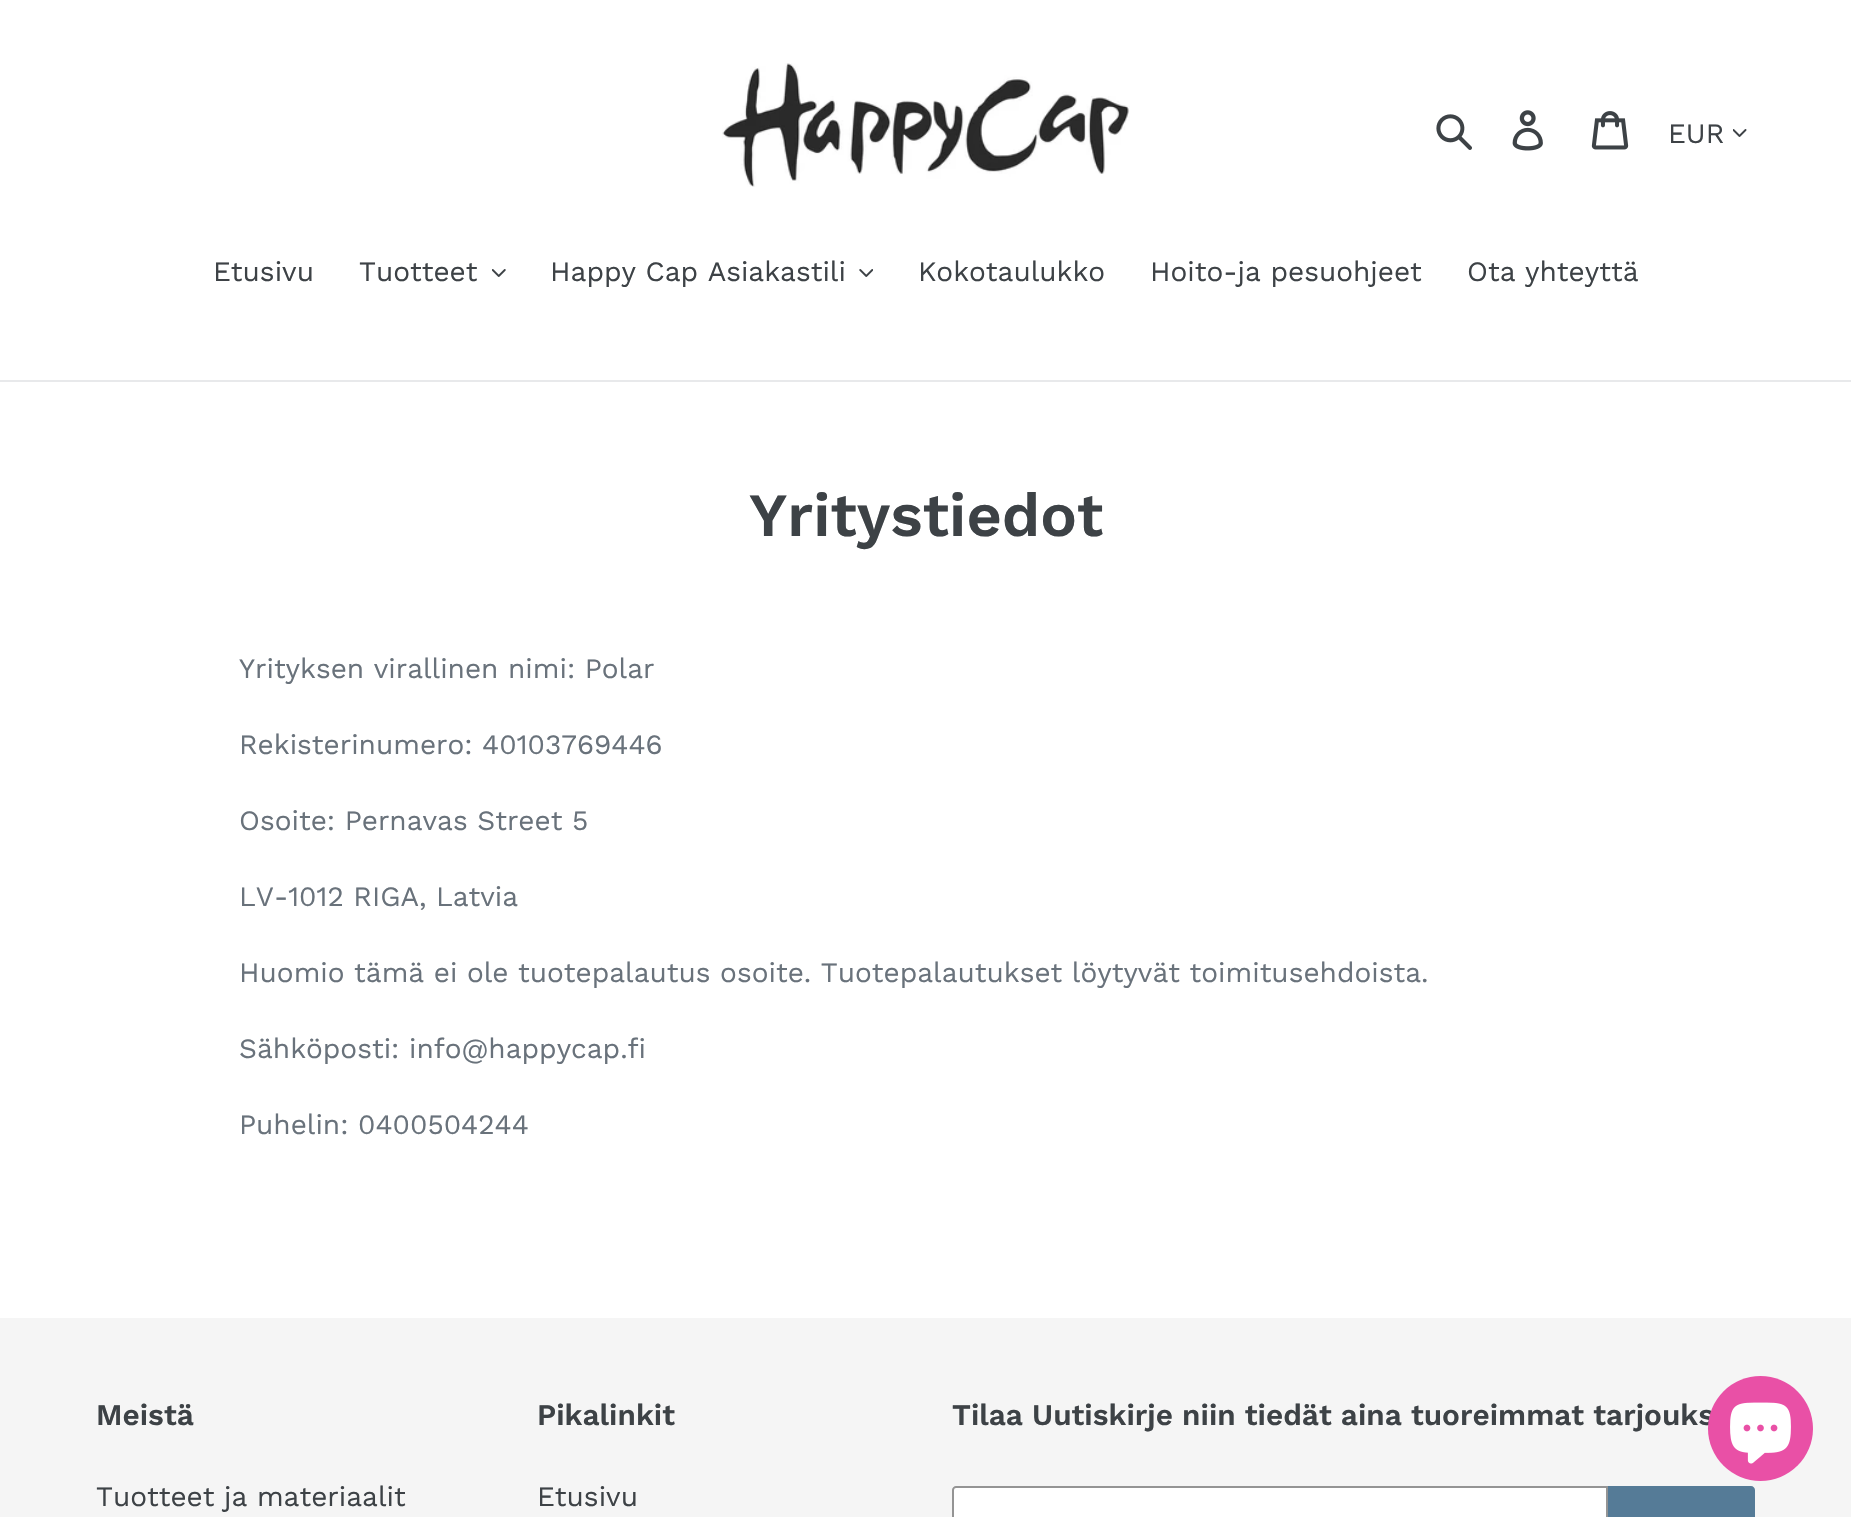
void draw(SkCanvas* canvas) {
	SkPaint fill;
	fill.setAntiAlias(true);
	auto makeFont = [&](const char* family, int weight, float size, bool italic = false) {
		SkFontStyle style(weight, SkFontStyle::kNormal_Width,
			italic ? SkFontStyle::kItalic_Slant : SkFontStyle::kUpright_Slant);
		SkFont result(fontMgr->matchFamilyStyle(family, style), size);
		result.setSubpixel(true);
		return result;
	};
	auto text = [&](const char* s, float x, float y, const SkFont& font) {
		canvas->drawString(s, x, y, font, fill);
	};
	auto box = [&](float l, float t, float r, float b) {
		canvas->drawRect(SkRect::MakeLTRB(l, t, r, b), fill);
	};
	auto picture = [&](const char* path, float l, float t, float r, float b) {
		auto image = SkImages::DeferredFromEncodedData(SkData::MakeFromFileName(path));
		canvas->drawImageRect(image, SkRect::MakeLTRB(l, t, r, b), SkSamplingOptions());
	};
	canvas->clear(0xFFFFFFFF);
	picture("image0.png", 722, 63, 1130, 187);
	picture("image1.png", 1436, 114, 1472, 150);
	picture("image2.png", 1512, 110, 1543, 151);
	picture("image3.png", 1591, 111, 1629, 150);
	picture("image4.png", 1733, 129, 1747, 137);
	fill.setColor(0xFFE8E9EB);
	box(0, 380, 1851, 382);
	picture("image5.png", 492, 269, 506, 277);
	picture("image6.png", 859, 269, 873, 277);
	fill.setColor(0xFFF5F5F5);
	box(0, 1318, 1851, 1517);
	fill.setColor(0xFFFFFFFF);
	canvas->drawPath(SkPathBuilder().moveTo(956, 1487).lineTo(1607, 1487).lineTo(1607, 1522).lineTo(956, 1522).cubicTo(954.5f, 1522, 953, 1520.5f, 953, 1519).lineTo(953, 1490).cubicTo(953, 1488.5f, 954.5f, 1487, 956, 1487).close().detach(), fill);
	fill.setStyle(SkPaint::kStroke_Style);
	fill.setStrokeWidth(2);
	fill.setColor(0xFF949494);
	canvas->drawPath(SkPathBuilder().moveTo(956, 1487).lineTo(1607, 1487).lineTo(1607, 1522).lineTo(956, 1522).cubicTo(954.5f, 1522, 953, 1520.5f, 953, 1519).lineTo(953, 1490).cubicTo(953, 1488.5f, 954.5f, 1487, 956, 1487).close().detach(), fill);
	fill.setStyle(SkPaint::kFill_Style);
	fill.setColor(0xFF557B97);
	canvas->drawPath(SkPathBuilder().moveTo(1608, 1486).lineTo(1751, 1486).cubicTo(1753, 1486, 1755, 1488, 1755, 1490).lineTo(1755, 1517).cubicTo(1755, 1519, 1753, 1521, 1751, 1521).lineTo(1608, 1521).close().detach(), fill);
	auto font1 = makeFont("Work Sans", 400, 28);
	fill.setColor(0xFF3D4246);
	text("EUR", 1668, 143, font1);
	text("Etusivu", 213, 281, font1);
	text("Tuotteet", 359, 281, font1);
	text("Happy Cap Asiakastili", 550, 281, font1);
	text("Kokotaulukko", 918, 281, font1);
	text("Hoito-ja pesuohjeet", 1150, 281, font1);
	text("Ota yhteyttä", 1467, 281, font1);
	auto font2 = makeFont("Work Sans", 600, 61.25f);
	text("Yritystiedot", 749, 536, font2);
	fill.setColor(0xFF69727B);
	text("Yrityksen virallinen nimi: Polar", 239, 678, font1);
	text("Rekisterinumero: 40103769446", 239, 754, font1);
	text("Osoite: Pernavas Street 5", 239, 830, font1);
	text("LV-1012 RIGA, Latvia", 239, 906, font1);
	text("Huomio tämä ei ole tuotepalautus osoite. Tuotepalautukset löytyvät toimitusehdoista.", 239, 982, font1);
	text("Sähköposti: info@happycap.fi", 239, 1058, font1);
	text("Puhelin: 0400504244", 239, 1134, font1);
	auto font3 = makeFont("Work Sans", 600, 29.75f);
	fill.setColor(0xFF3D4246);
	text("Meistä", 96, 1425, font3);
	text("Tuotteet ja materiaalit", 96, 1506, font1);
	text("Pikalinkit", 537, 1425, font3);
	text("Etusivu", 537, 1506, font1);
	text("Tilaa Uutiskirje niin tiedät aina tuoreimmat tarjouks", 952, 1425, font3);
	fill.setColor(0xFFE950A6);
	canvas->drawCircle(1760.5f, 1428.5f, 52.5f, fill);
	picture("image7.png", 1730, 1402, 1791, 1464);
}
